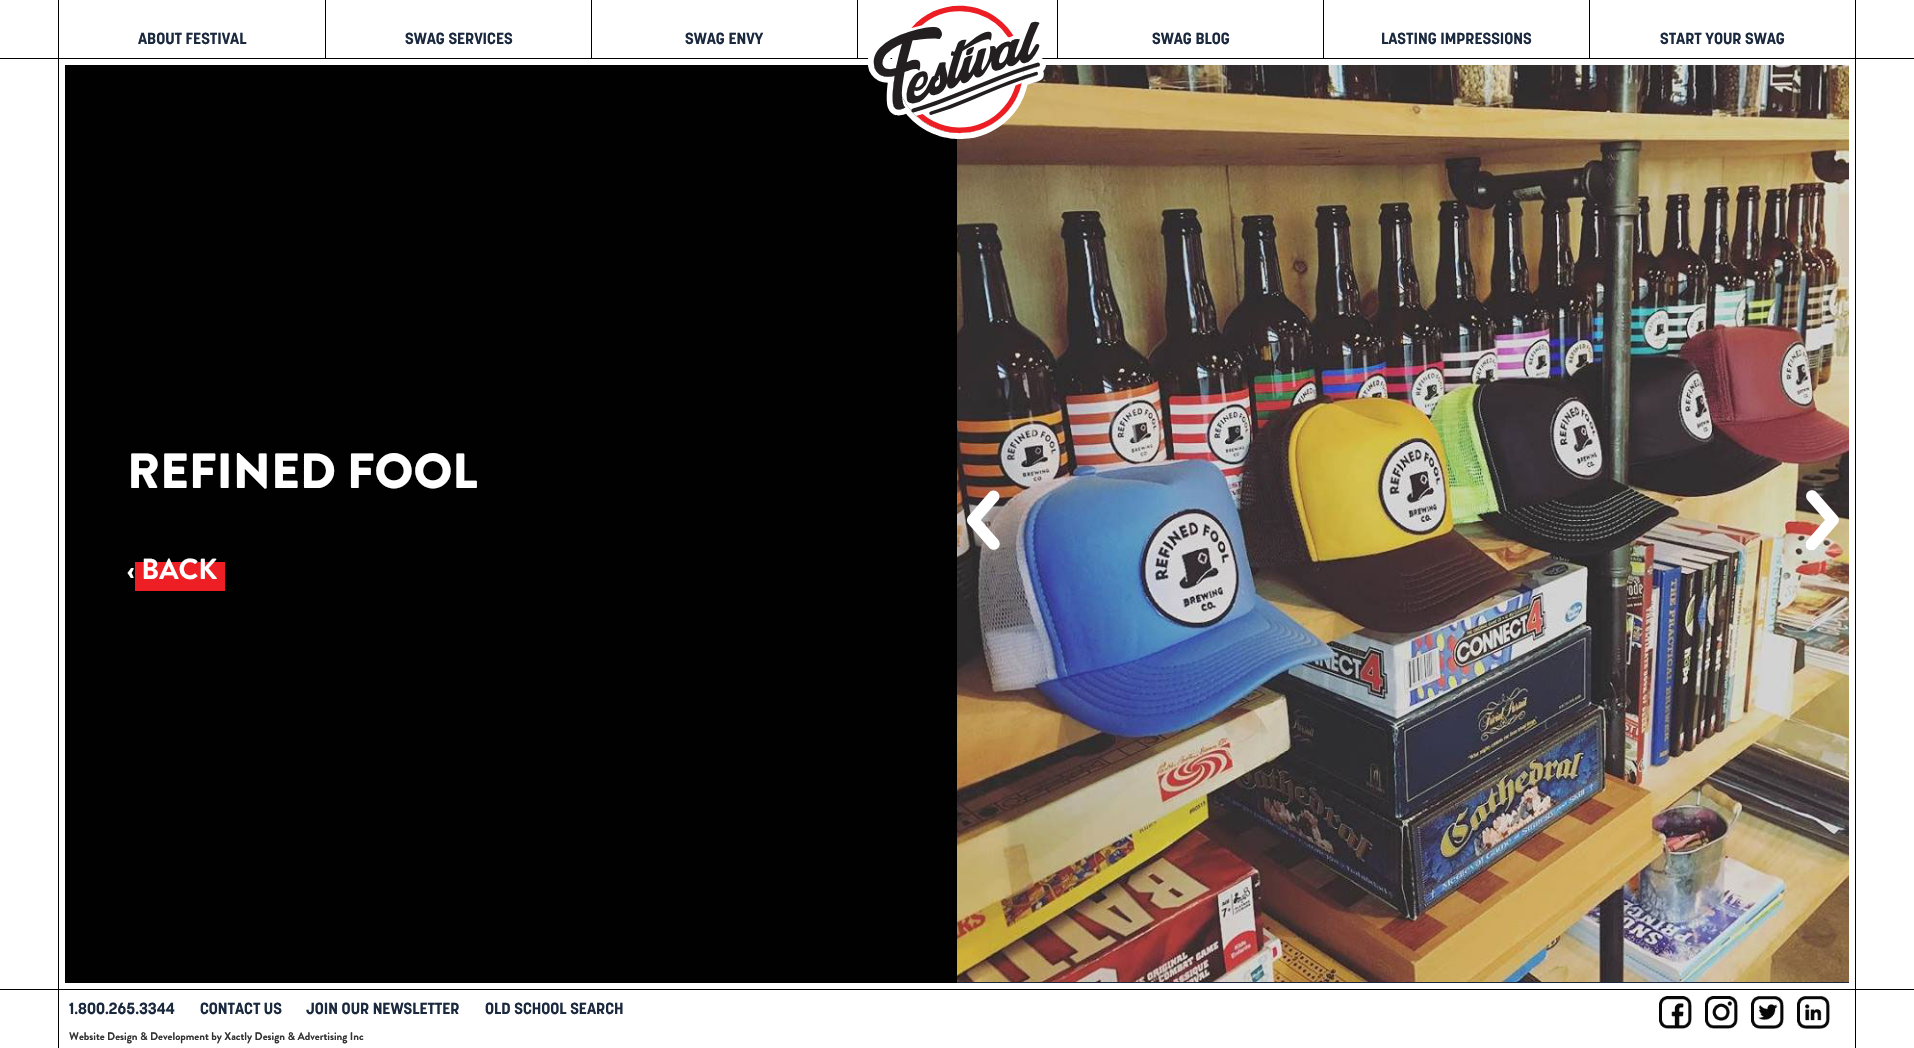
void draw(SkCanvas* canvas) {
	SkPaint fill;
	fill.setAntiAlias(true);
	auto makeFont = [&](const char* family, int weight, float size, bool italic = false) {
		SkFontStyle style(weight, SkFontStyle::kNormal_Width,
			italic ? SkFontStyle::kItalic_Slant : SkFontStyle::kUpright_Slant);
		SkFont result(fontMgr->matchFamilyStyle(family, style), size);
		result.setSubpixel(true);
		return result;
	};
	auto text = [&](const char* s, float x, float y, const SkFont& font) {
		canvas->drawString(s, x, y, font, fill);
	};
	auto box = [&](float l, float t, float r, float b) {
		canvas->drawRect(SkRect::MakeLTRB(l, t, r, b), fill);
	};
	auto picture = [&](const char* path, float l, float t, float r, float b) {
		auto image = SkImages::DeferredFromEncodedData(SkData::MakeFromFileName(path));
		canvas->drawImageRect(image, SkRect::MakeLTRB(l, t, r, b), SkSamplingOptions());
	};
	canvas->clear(0xFFFFFFFF);
	fill.setStyle(SkPaint::kStroke_Style);
	fill.setStrokeWidth(1);
	fill.setColor(0xFF000000);
	canvas->drawRect(SkRect::MakeLTRB(58.5f, -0.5f, 1855.5f, 1036.5f), fill);
	fill.setStyle(SkPaint::kFill_Style);
	fill.setColor(0xFFFFFFFF);
	box(58, 0, 1856, 58);
	fill.setColor(0xFF000000);
	box(0, 58, 1914, 59);
	box(1855, 0, 1856, 58);
	box(58, 0, 59, 58);
	box(325, 0, 326, 58);
	box(591, 0, 592, 58);
	box(857, 0, 858, 58);
	fill.setColor(0xFF020101);
	box(65, 65, 957, 983);
	picture("image5.png", 957, 65, 1849, 982);
	picture("image0.png", 868, 5, 1046, 139);
	fill.setColor(0xFF000000);
	box(1057, 0, 1058, 58);
	box(1323, 0, 1324, 58);
	box(1589, 0, 1590, 58);
	fill.setColor(0xFFFFFFFF);
	box(58, 990, 1856, 1037);
	fill.setColor(0xFF000000);
	box(0, 989, 1914, 990);
	box(1855, 990, 1856, 1048);
	box(58, 990, 59, 1048);
	picture("image1.png", 1659, 996, 1692, 1029);
	picture("image2.png", 1705, 996, 1738, 1029);
	picture("image3.png", 1751, 996, 1784, 1029);
	picture("image4.png", 1797, 996, 1830, 1029);
	fill.setColor(0xFF1A273C);
	box(957, 982, 1849, 983);
	fill.setColor(0xFFED1F24);
	box(135, 562, 225, 591);
	picture("image6.png", 967, 490, 1000, 550);
	picture("image7.png", 1806, 490, 1839, 550);
	auto font1 = makeFont("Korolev", 700, 16);
	fill.setColor(0xFF1B293F);
	text("ABOUT FESTIVAL", 138, 44, font1);
	text("SWAG SERVICES", 405, 44, font1);
	text("SWAG ENVY", 685, 44, font1);
	text("SWAG BLOG", 1152, 44, font1);
	text("LASTING IMPRESSIONS", 1381, 44, font1);
	text("START YOUR SWAG", 1660, 44, font1);
	text("1.800.265.3344", 69, 1014, font1);
	text("CONTACT US", 200, 1014, font1);
	text("JOIN OUR NEWSLETTER", 306, 1014, font1);
	text("OLD SCHOOL SEARCH", 485, 1014, font1);
	auto font2 = makeFont("Brandon Grotesque", 700, 11);
	fill.setColor(0xFF333333);
	text("Website Design & Development by Xactly Design & Advertising Inc", 69, 1040, font2);
	auto font3 = makeFont("Brandon Grotesque", 900, 49.25f);
	fill.setColor(0xFFFFFFFF);
	text("REFINED FOOL", 127, 488, font3);
	auto font4 = makeFont("Brandon Grotesque", 700, 29);
	text("‹ BACK", 127, 579, font4);
}
